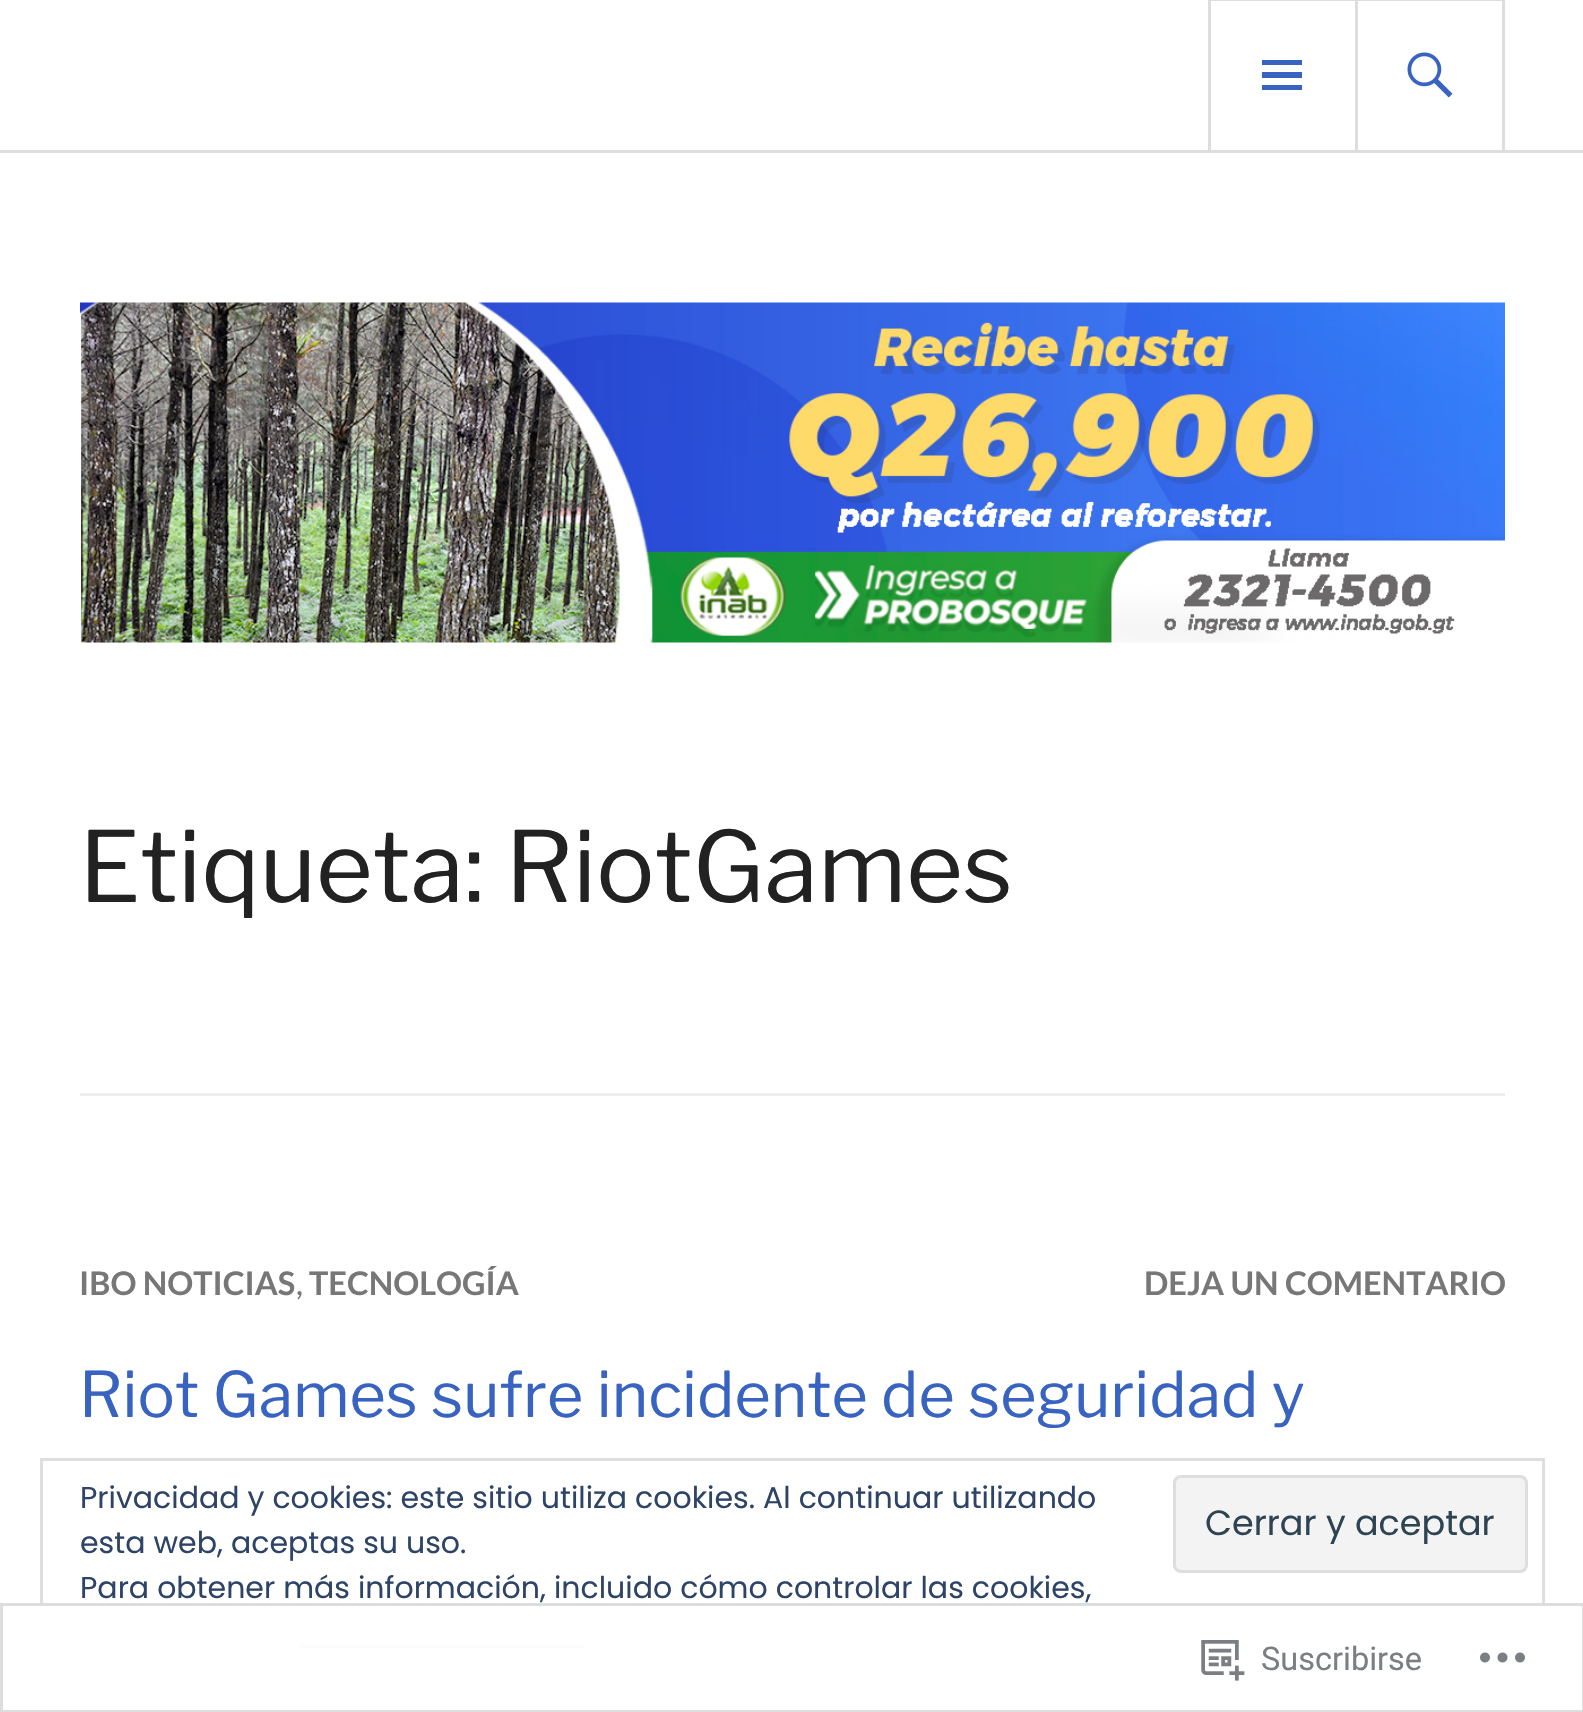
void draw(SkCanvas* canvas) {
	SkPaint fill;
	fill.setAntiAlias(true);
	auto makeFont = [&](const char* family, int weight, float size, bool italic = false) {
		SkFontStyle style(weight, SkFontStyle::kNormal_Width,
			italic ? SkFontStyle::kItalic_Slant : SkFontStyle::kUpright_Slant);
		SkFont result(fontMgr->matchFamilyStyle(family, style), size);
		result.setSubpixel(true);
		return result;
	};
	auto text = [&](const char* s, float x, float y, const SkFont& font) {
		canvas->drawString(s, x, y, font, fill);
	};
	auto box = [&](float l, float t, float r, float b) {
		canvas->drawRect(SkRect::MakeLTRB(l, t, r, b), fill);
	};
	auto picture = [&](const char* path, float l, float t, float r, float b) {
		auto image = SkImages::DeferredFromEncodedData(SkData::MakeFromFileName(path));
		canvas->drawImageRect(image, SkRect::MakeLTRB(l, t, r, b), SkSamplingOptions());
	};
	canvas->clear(0xFFFFFFFF);
	fill.setColor(0xFFDDDDDD);
	box(0, 150, 1583, 153);
	fill.setStyle(SkPaint::kStroke_Style);
	fill.setStrokeWidth(3);
	canvas->drawRect(SkRect::MakeLTRB(1209.5f, -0.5f, 1356.5f, 151.5f), fill);
	fill.setStyle(SkPaint::kFill_Style);
	fill.setColor(0xFF3863C1);
	canvas->drawPath(SkPathBuilder().moveTo(1262, 90).lineTo(1262, 85).lineTo(1302, 85).lineTo(1302, 90).close().moveTo(1262, 60).lineTo(1302, 60).lineTo(1302, 65).lineTo(1262, 65).close().moveTo(1262, 78).lineTo(1262, 72).lineTo(1302, 72).lineTo(1302, 78).close().detach(), fill);
	fill.setStyle(SkPaint::kStroke_Style);
	fill.setColor(0xFFDDDDDD);
	canvas->drawRect(SkRect::MakeLTRB(1356.5f, -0.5f, 1503.5f, 151.5f), fill);
	picture("image0.png", 1407, 52, 1453, 98);
	picture("image1.png", 80, 302, 1505, 643);
	fill.setStyle(SkPaint::kFill_Style);
	fill.setColor(0xFFEEEEEE);
	box(80, 1093, 1505, 1096);
	fill.setStyle(SkPaint::kStroke_Style);
	fill.setColor(0xFFDEDEDE);
	canvas->drawRect(SkRect::MakeLTRB(41.5f, 1459.5f, 1543.5f, 1671.5f), fill);
	fill.setStyle(SkPaint::kFill_Style);
	fill.setColor(0xFFF3F3F3);
	canvas->drawRoundRect(SkRect::MakeLTRB(1174.5f, 1476.5f, 1526.5f, 1571.5f), 6.5f, 6.5f, fill);
	fill.setStyle(SkPaint::kStroke_Style);
	fill.setColor(0xFFDEDEDE);
	canvas->drawRoundRect(SkRect::MakeLTRB(1174.5f, 1476.5f, 1526.5f, 1571.5f), 6.5f, 6.5f, fill);
	fill.setStyle(SkPaint::kFill_Style);
	fill.setColor(0xFF2E4467);
	box(300, 1645, 585, 1648);
	fill.setColor(0xFAFFFFFF);
	box(40, 1603, 1545, 1673);
	fill.setStyle(SkPaint::kStroke_Style);
	fill.setColor(0xFADCDCDE);
	canvas->drawRect(SkRect::MakeLTRB(1.5f, 1604.5f, 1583.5f, 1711.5f), fill);
	picture("image2.png", 1201, 1640, 1245, 1681);
	picture("image3.png", 1480, 1652, 1525, 1663);
	auto font1 = makeFont("Libre Franklin", 100, 97.5f);
	fill.setStyle(SkPaint::kFill_Style);
	fill.setColor(0xFF222222);
	text("Etiqueta: RiotGames", 79, 902, font1);
	auto font2 = makeFont("Lato", 700, 32.5f);
	fill.setColor(0xFF777777);
	text("IBO NOTICIAS", 79, 1295, font2);
	auto font3 = makeFont("Lato", 400, 32.5f);
	text(",", 296, 1295, font3);
	text("TECNOLOGÍA", 309, 1295, font2);
	text("DEJA UN COMENTARIO", 1144, 1295, font2);
	auto font4 = makeFont("Libre Franklin", 100, 62.5f);
	fill.setColor(0xFF3863C1);
	text("Riot Games sufre incidente de seguridad y", 79, 1417, font4);
	auto font5 = makeFont("Poppins", 400, 30);
	fill.setColor(0xFF2E4467);
	text("Privacidad y cookies: este sitio utiliza cookies. Al continuar utilizando", 80, 1508, font5);
	text("esta web, aceptas su uso.", 80, 1553, font5);
	auto font6 = makeFont("Poppins", 400, 35);
	fill.setColor(0xFF2E4453);
	text("Cerrar y aceptar", 1205, 1535, font6);
	fill.setColor(0xFF2E4467);
	text("Para obtener más información, incluido cómo controlar las cookies,", 80, 1598, font5);
	auto font7 = makeFont("Roboto", 400, 32.5f);
	fill.setColor(0xFF7B7F84);
	text("Suscribirse", 1261, 1670, font7);
}
